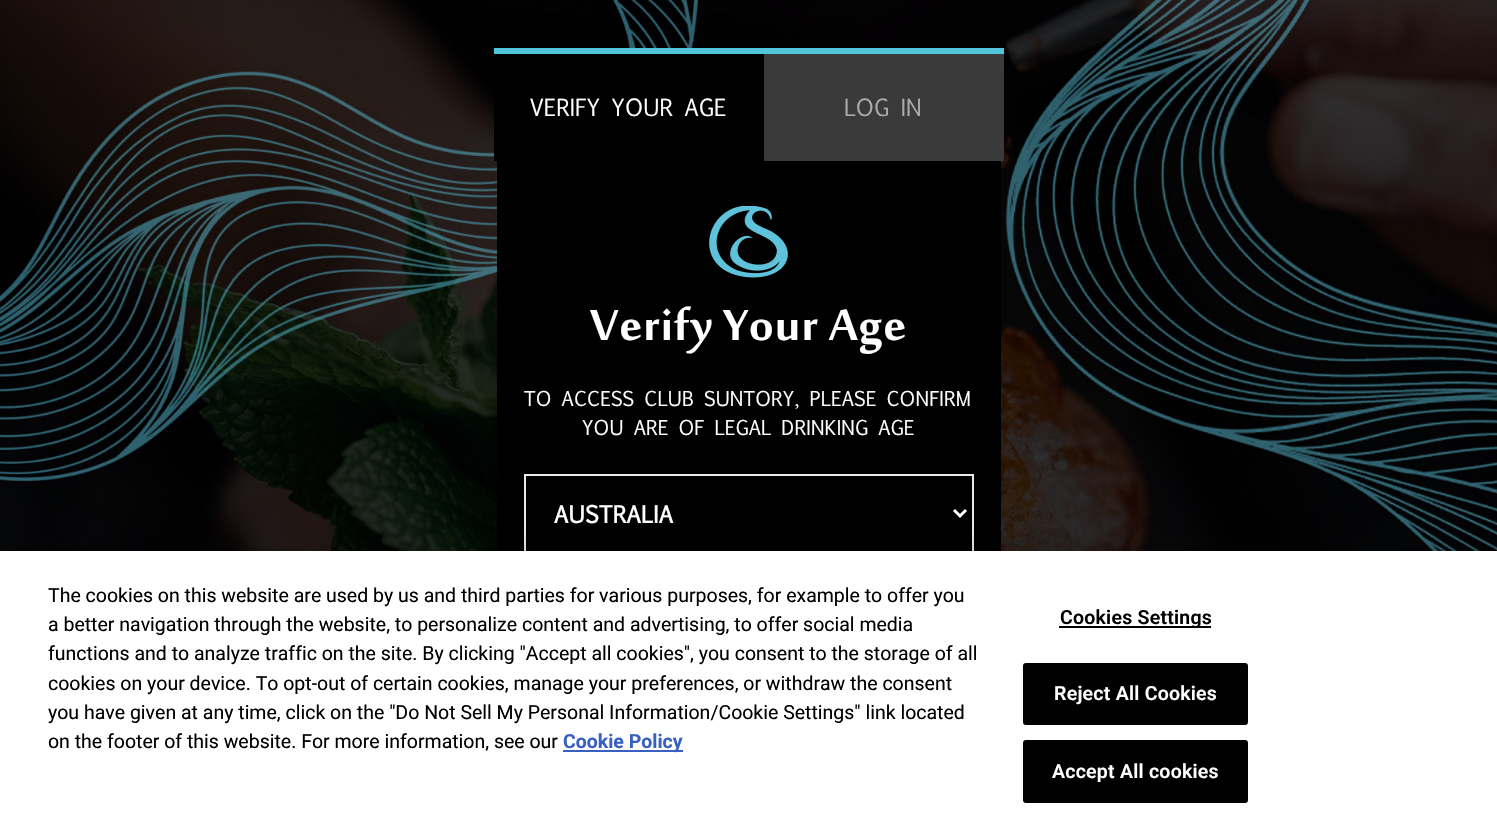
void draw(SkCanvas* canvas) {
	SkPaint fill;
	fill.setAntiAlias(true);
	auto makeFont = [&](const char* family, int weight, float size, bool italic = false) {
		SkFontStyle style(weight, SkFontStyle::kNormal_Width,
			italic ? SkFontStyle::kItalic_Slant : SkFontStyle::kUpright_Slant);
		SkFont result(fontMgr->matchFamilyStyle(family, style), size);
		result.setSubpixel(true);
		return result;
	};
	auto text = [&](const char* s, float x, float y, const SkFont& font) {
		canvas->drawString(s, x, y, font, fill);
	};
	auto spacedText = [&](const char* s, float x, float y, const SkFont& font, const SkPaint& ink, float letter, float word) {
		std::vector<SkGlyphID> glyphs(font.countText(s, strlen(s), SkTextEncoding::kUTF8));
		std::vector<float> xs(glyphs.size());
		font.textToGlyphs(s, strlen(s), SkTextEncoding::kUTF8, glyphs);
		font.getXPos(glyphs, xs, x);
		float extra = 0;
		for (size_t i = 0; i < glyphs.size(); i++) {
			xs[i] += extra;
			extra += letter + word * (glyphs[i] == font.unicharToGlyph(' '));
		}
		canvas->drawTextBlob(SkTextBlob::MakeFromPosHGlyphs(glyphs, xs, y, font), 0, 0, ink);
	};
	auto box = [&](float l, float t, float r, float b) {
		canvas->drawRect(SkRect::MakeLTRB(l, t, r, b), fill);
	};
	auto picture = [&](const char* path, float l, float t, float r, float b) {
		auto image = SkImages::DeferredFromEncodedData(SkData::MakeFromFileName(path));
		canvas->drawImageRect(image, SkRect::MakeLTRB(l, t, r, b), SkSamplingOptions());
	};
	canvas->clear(0xFFFFFFFF);
	picture("image0.png", 0, 0, 1497, 551);
	fill.setColor(0xFF4FC6DB);
	box(494, 48, 1004, 54);
	fill.setColor(0xFF000000);
	box(494, 54, 764, 161);
	fill.setColor(0xFF3A3A3A);
	box(764, 54, 1004, 161);
	fill.setColor(0xFF000000);
	box(497, 161, 1001, 551);
	picture("image1.png", 709, 206, 788, 278);
	fill.setStyle(SkPaint::kStroke_Style);
	fill.setStrokeWidth(2);
	fill.setColor(0xFFEAEAEA);
	canvas->drawRect(SkRect::MakeLTRB(525, 475, 973, 553), fill);
	fill.setStrokeWidth(3);
	fill.setColor(0xFFFFFFFF);
	canvas->drawPath(SkPathBuilder().moveTo(954, 510).lineTo(960, 516).lineTo(966, 510).detach(), fill);
	fill.setStyle(SkPaint::kFill_Style);
	fill.setColor(0x33000000);
	fill.setMaskFilter(SkMaskFilter::MakeBlur(kNormal_SkBlurStyle, 13.5f));
	canvas->drawRect(SkRect::MakeLTRB(0, 551, 1497, 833), fill);
	fill.setMaskFilter(nullptr);
	fill.setColor(0xFFFFFFFF);
	box(0, 551, 1497, 832);
	fill.setColor(0xFF3860BE);
	box(563, 750, 683, 752);
	fill.setColor(0xFF000000);
	box(1059, 626, 1211, 628);
	canvas->drawRoundRect(SkRect::MakeLTRB(1024, 664, 1247, 724), 2, 2, fill);
	fill.setStyle(SkPaint::kStroke_Style);
	fill.setStrokeWidth(2);
	canvas->drawRoundRect(SkRect::MakeLTRB(1024, 664, 1247, 724), 2, 2, fill);
	fill.setStyle(SkPaint::kFill_Style);
	canvas->drawRoundRect(SkRect::MakeLTRB(1024, 741, 1247, 802), 2, 2, fill);
	fill.setStyle(SkPaint::kStroke_Style);
	canvas->drawRoundRect(SkRect::MakeLTRB(1024, 741, 1247, 802), 2, 2, fill);
	auto font1 = makeFont("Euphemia", 400, 22.5f);
	fill.setStyle(SkPaint::kFill_Style);
	fill.setColor(0xFFFFFFFF);
	spacedText("VERIFY YOUR AGE", 530, 116, font1, fill, 0.2f, 0);
	fill.setColor(0xFFABABAB);
	spacedText("LOG IN", 844, 116, font1, fill, 0.2f, 0);
	auto font2 = makeFont("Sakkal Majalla", 700, 60);
	fill.setColor(0xFFFFFFFF);
	spacedText("Verify Your Age", 590, 340, font2, fill, 0.75f, 0);
	auto font3 = makeFont("Euphemia", 400, 19.5f);
	spacedText("TO ACCESS CLUB SUNTORY, PLEASE CONFIRM", 524, 406, font3, fill, 0.2f, 0);
	spacedText("YOU ARE OF LEGAL DRINKING AGE", 582, 435, font3, fill, 0.2f, 0);
	auto font4 = makeFont("Euphemia", 700, 22.5f);
	spacedText("AUSTRALIA", 554, 523, font4, fill, 0.5f, 0);
	auto font5 = makeFont("Roboto", 400, 19.5f);
	fill.setColor(0xFF000000);
	text("The cookies on this website are used by us and third parties for various purposes, for example to offer you", 48, 602, font5);
	text("a better navigation through the website, to personalize content and advertising, to offer social media", 48, 631, font5);
	text("functions and to analyze traffic on the site. By clicking \"Accept all cookies\", you consent to the storage of all", 48, 660, font5);
	text("cookies on your device. To opt-out of certain cookies, manage your preferences, or withdraw the consent", 48, 690, font5);
	text("you have given at any time, click on the \"Do Not Sell My Personal Information/Cookie Settings\" link located", 48, 719, font5);
	text("on the footer of this website. For more information, see our", 48, 748, font5);
	auto font6 = makeFont("Roboto", 700, 19.5f);
	fill.setColor(0xFF3860BE);
	text("Cookie Policy", 563, 748, font6);
	auto font7 = makeFont("Roboto", 600, 19.5f);
	fill.setColor(0xFF000000);
	spacedText("Cookies Settings", 1060, 624, font7, fill, 0.25f, 0);
	fill.setColor(0xFFFFFFFF);
	spacedText("Reject All Cookies", 1054, 700, font7, fill, 0.25f, 0);
	spacedText("Accept All cookies", 1052, 778, font7, fill, 0.25f, 0);
}
